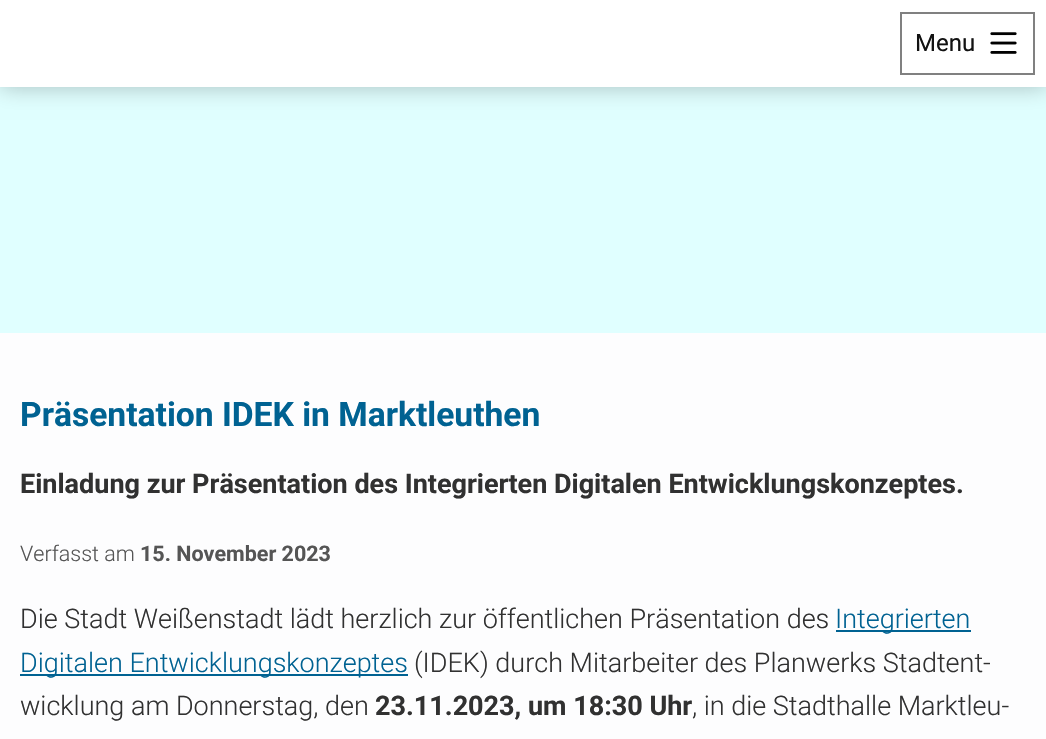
void draw(SkCanvas* canvas) {
	SkPaint fill;
	fill.setAntiAlias(true);
	auto makeFont = [&](const char* family, int weight, float size, bool italic = false) {
		SkFontStyle style(weight, SkFontStyle::kNormal_Width,
			italic ? SkFontStyle::kItalic_Slant : SkFontStyle::kUpright_Slant);
		SkFont result(fontMgr->matchFamilyStyle(family, style), size);
		result.setSubpixel(true);
		return result;
	};
	auto text = [&](const char* s, float x, float y, const SkFont& font) {
		canvas->drawString(s, x, y, font, fill);
	};
	auto box = [&](float l, float t, float r, float b) {
		canvas->drawRect(SkRect::MakeLTRB(l, t, r, b), fill);
	};
	auto picture = [&](const char* path, float l, float t, float r, float b) {
		auto image = SkImages::DeferredFromEncodedData(SkData::MakeFromFileName(path));
		canvas->drawImageRect(image, SkRect::MakeLTRB(l, t, r, b), SkSamplingOptions());
	};
	canvas->clear(0xFFE0FFFF);
	fill.setColor(0x40000000);
	fill.setMaskFilter(SkMaskFilter::MakeBlur(kNormal_SkBlurStyle, 11));
	canvas->drawRect(SkRect::MakeLTRB(0, 0, 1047, 87), fill);
	fill.setMaskFilter(nullptr);
	fill.setColor(0xFFFFFFFF);
	box(0, 0, 1046, 87);
	fill.setStyle(SkPaint::kStroke_Style);
	fill.setStrokeWidth(2);
	fill.setColor(0xFF808080);
	canvas->drawRect(SkRect::MakeLTRB(901, 13, 1034, 74), fill);
	picture("image0.png", 990, 32, 1017, 54);
	fill.setStyle(SkPaint::kFill_Style);
	fill.setColor(0xFFFDFDFE);
	box(0, 333, 1046, 739);
	fill.setColor(0xFF006292);
	box(836, 630, 971, 632);
	box(20, 674, 408, 676);
	auto font1 = makeFont("Roboto", 400, 24);
	fill.setColor(0xFF121212);
	text("Menu", 915, 51, font1);
	auto font2 = makeFont("Roboto", 700, 33.6f);
	fill.setColor(0xFF006292);
	text("Präsentation IDEK in Marktleuthen", 20, 426, font2);
	auto font3 = makeFont("Roboto", 700, 27);
	fill.setColor(0xFF313131);
	text("Einladung zur Präsentation des Integrierten Digitalen Entwicklungskonzeptes.", 20, 493, font3);
	auto font4 = makeFont("Roboto", 300, 21.5f);
	fill.setColor(0xFF555555);
	text("Verfasst am", 20, 561, font4);
	auto font5 = makeFont("Roboto", 700, 21.5f);
	text("15. November 2023", 140, 561, font5);
	auto font6 = makeFont("Roboto", 300, 27);
	fill.setColor(0xFF313131);
	text("Die Stadt Weißenstadt lädt herzlich zur öffentlichen Präsentation des", 20, 628, font6);
	fill.setColor(0xFF006292);
	text("Integrierten", 835, 628, font6);
	text("Digitalen Entwicklungskonzeptes", 20, 672, font6);
	fill.setColor(0xFF313131);
	text("(IDEK) durch Mitarbeiter des Planwerks Stadtent-", 414, 672, font6);
	text("wicklung am Donnerstag, den", 20, 715, font6);
	text("23.11.2023, um 18:30 Uhr", 375, 715, font3);
	text(", in die Stadthalle Marktleu-", 692, 715, font6);
}
